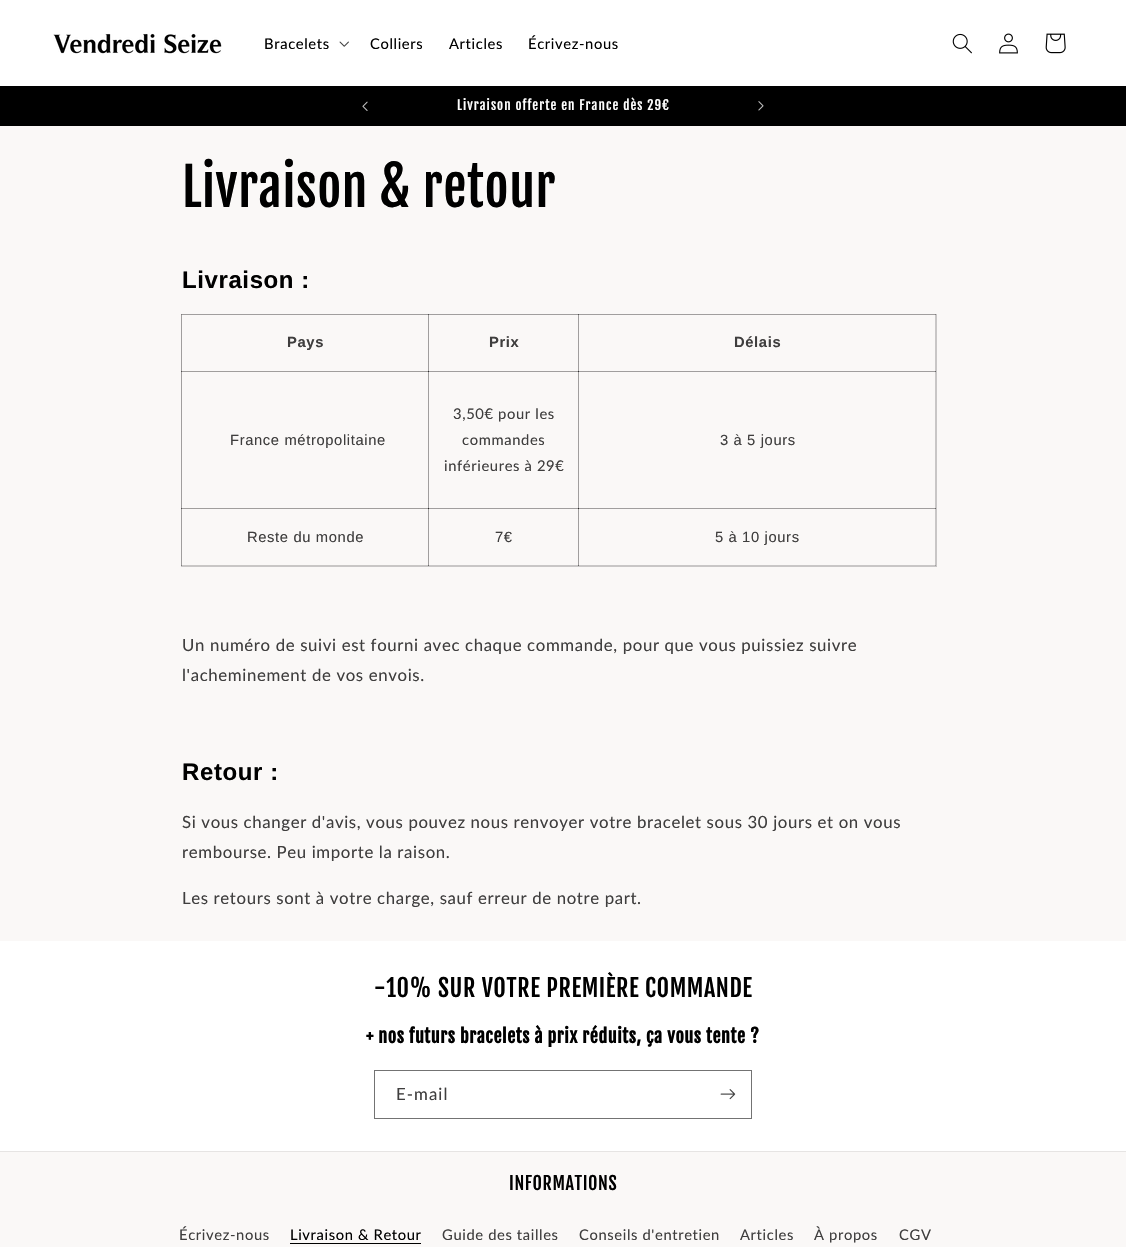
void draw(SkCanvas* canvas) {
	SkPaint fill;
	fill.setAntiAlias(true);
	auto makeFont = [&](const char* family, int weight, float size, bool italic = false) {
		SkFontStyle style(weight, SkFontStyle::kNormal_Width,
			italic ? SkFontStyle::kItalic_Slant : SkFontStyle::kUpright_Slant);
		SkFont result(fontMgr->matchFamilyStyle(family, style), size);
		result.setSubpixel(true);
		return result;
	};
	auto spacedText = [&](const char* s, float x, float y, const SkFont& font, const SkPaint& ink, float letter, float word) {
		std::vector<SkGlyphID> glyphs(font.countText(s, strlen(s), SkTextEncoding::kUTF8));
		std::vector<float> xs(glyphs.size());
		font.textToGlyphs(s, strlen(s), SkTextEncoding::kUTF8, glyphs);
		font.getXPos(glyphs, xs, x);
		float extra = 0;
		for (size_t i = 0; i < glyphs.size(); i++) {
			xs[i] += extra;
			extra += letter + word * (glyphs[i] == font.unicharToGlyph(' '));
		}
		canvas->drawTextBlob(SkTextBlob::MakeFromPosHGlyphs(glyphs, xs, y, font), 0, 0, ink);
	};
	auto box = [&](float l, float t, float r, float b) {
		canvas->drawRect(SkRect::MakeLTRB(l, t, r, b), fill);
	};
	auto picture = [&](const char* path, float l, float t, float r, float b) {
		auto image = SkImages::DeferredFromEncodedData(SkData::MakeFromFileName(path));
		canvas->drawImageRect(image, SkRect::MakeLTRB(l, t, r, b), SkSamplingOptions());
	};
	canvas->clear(0xFFFAF8F7);
	fill.setColor(0xFFC8C6C6);
	box(428, 371, 579, 372);
	fill.setColor(0xFFA09E9E);
	box(578, 371, 579, 509);
	fill.setColor(0xFFC8C6C6);
	box(935, 371, 936, 509);
	box(428, 508, 429, 566);
	box(428, 565, 579, 566);
	fill.setColor(0xFFA09E9E);
	box(428, 565, 429, 566);
	fill.setColor(0xFFC8C6C6);
	box(428, 508, 579, 509);
	fill.setColor(0xFFA09E9E);
	box(428, 508, 429, 509);
	box(578, 508, 579, 566);
	fill.setColor(0xFFC8C6C6);
	box(578, 565, 936, 566);
	fill.setColor(0xFF666565);
	box(578, 565, 579, 566);
	fill.setColor(0xFFC8C6C6);
	box(935, 508, 936, 566);
	fill.setColor(0xFFA09E9E);
	box(935, 565, 936, 566);
	fill.setColor(0xFFFFFFFF);
	box(0, 0, 1126, 86);
	picture("image0.png", 53, 33, 222, 54);
	picture("image1.png", 339, 41, 349, 47);
	picture("image2.png", 952, 33, 972, 54);
	picture("image3.png", 999, 33, 1018, 54);
	picture("image4.png", 1045, 33, 1066, 54);
	fill.setColor(0xFF000000);
	box(0, 86, 1126, 126);
	picture("image5.png", 362, 101, 368, 111);
	picture("image6.png", 758, 101, 764, 111);
	fill.setStyle(SkPaint::kStroke_Style);
	fill.setStrokeWidth(1);
	fill.setColor(0xFFC8C6C6);
	canvas->drawRect(SkRect::MakeLTRB(181.5f, 314.5f, 936.5f, 566.5f), fill);
	fill.setStyle(SkPaint::kFill_Style);
	fill.setColor(0xFFA09E9E);
	box(578, 314, 936, 315);
	fill.setColor(0xFFC8C6C6);
	box(578, 371, 936, 372);
	fill.setColor(0xFFA09E9E);
	box(935, 371, 936, 372);
	fill.setColor(0x33000000);
	box(935, 314, 936, 372);
	fill.setColor(0xFF666565);
	box(578, 371, 579, 372);
	fill.setColor(0x33000000);
	box(578, 371, 936, 372);
	box(578, 314, 579, 372);
	box(428, 314, 579, 315);
	box(578, 314, 579, 372);
	box(181, 508, 429, 509);
	box(428, 508, 429, 566);
	fill.setColor(0xFFA09E9E);
	box(578, 508, 936, 509);
	fill.setColor(0xFF353434);
	box(578, 508, 579, 509);
	fill.setColor(0x33000000);
	box(428, 508, 579, 509);
	box(428, 371, 429, 509);
	box(181, 371, 429, 372);
	box(428, 371, 429, 509);
	box(428, 371, 579, 372);
	box(428, 314, 429, 372);
	box(181, 314, 429, 315);
	box(428, 314, 429, 372);
	box(181, 565, 429, 566);
	box(181, 508, 182, 566);
	box(181, 508, 429, 509);
	box(181, 371, 182, 509);
	box(181, 371, 429, 372);
	box(181, 314, 182, 372);
	fill.setColor(0xFF666565);
	box(935, 508, 936, 509);
	fill.setColor(0xFFFFFFFF);
	box(0, 941, 1126, 1151);
	fill.setStyle(SkPaint::kStroke_Style);
	fill.setColor(0xFF737373);
	canvas->drawRect(SkRect::MakeLTRB(374.5f, 1070.5f, 751.5f, 1118.5f), fill);
	picture("image7.png", 720, 1089, 736, 1100);
	fill.setStyle(SkPaint::kFill_Style);
	fill.setColor(0xFFE6E4E3);
	box(0, 1151, 1126, 1152);
	fill.setColor(0xFF000000);
	box(290, 1243, 421, 1244);
	auto font1 = makeFont("Lato", 400, 14.75f);
	spacedText("Bracelets", 264, 49, font1, fill, 0.63f, 0);
	spacedText("Colliers", 370, 49, font1, fill, 0.63f, 0);
	spacedText("Articles", 449, 49, font1, fill, 0.63f, 0);
	spacedText("Écrivez-nous", 528, 49, font1, fill, 0.63f, 0);
	auto font2 = makeFont("Fjalla One", 400, 13);
	fill.setColor(0xFFFFFFFF);
	spacedText("Livraison offerte en France dès 29€", 457, 110, font2, fill, 1.05f, 0);
	auto font3 = makeFont("Fjalla One", 400, 52);
	fill.setColor(0xFF000000);
	spacedText("Livraison & retour", 182, 207, font3, fill, 0.6f, 0);
	auto font4 = makeFont("Liberation Sans", 700, 24);
	spacedText("Livraison :", 182, 288, font4, fill, 0.6f, 0);
	auto font5 = makeFont("Liberation Sans", 700, 14.75f);
	fill.setColor(0xFF3F3E3E);
	spacedText("Pays", 287, 347, font5, fill, 0.63f, 0);
	spacedText("Prix", 489, 347, font5, fill, 0.63f, 0);
	spacedText("Délais", 734, 347, font5, fill, 0.63f, 0);
	auto font6 = makeFont("Liberation Sans", 400, 14.75f);
	spacedText("France métropolitaine", 230, 445, font6, fill, 0.63f, 0);
	spacedText("3,50€ pour les", 453, 419, font1, fill, 0.63f, 0);
	spacedText("commandes", 462, 445, font1, fill, 0.63f, 0);
	spacedText("inférieures à 29€", 444, 471, font1, fill, 0.63f, 0);
	spacedText("3 à 5 jours", 720, 445, font6, fill, 0.63f, 0);
	spacedText("Reste du monde", 247, 542, font6, fill, 0.63f, 0);
	spacedText("7€", 495, 542, font6, fill, 0.63f, 0);
	spacedText("5 à 10 jours", 715, 542, font6, fill, 0.63f, 0);
	auto font7 = makeFont("Lato", 400, 16.8f);
	spacedText("Un numéro de suivi est fourni avec chaque commande, pour que vous puissiez suivre", 182, 651, font7, fill, 0.63f, 0);
	spacedText("l'acheminement de vos envois.", 182, 681, font7, fill, 0.63f, 0);
	fill.setColor(0xFF000000);
	spacedText("Retour :", 182, 780, font4, fill, 0.6f, 0);
	fill.setColor(0xFF3F3E3E);
	spacedText("Si vous changer d'avis, vous pouvez nous renvoyer votre bracelet sous 30 jours et on vous", 182, 828, font7, fill, 0.63f, 0);
	spacedText("rembourse. Peu importe la raison.", 182, 858, font7, fill, 0.63f, 0);
	spacedText("Les retours sont à votre charge, sauf erreur de notre part.", 182, 904, font7, fill, 0.63f, 0);
	auto font8 = makeFont("Fjalla One", 400, 24);
	fill.setColor(0xFF000000);
	spacedText("-10% SUR VOTRE PREMIÈRE COMMANDE", 374, 997, font8, fill, 0.6f, 0);
	auto font9 = makeFont("Fjalla One", 700, 18);
	spacedText("+ nos futurs bracelets à prix réduits, ça vous tente ?", 366, 1043, font9, fill, 0.6f, 0);
	fill.setColor(0xFF3F3E3E);
	spacedText("E-mail", 396, 1100, font7, fill, 1.05f, 0);
	auto font10 = makeFont("Fjalla One", 400, 18);
	fill.setColor(0xFF000000);
	spacedText("INFORMATIONS", 509, 1190, font10, fill, 0.6f, 0);
	fill.setColor(0xFF3F3E3E);
	spacedText("Écrivez-nous", 179, 1240, font1, fill, 0.63f, 0);
	fill.setColor(0xFF000000);
	spacedText("Livraison & Retour", 290, 1240, font1, fill, 0.63f, 0);
	fill.setColor(0xFF3F3E3E);
	spacedText("Guide des tailles", 442, 1240, font1, fill, 0.63f, 0);
	spacedText("Conseils d'entretien", 579, 1240, font1, fill, 0.63f, 0);
	spacedText("Articles", 740, 1240, font1, fill, 0.63f, 0);
	spacedText("À propos", 814, 1240, font1, fill, 0.63f, 0);
	spacedText("CGV", 899, 1240, font1, fill, 0.63f, 0);
}
